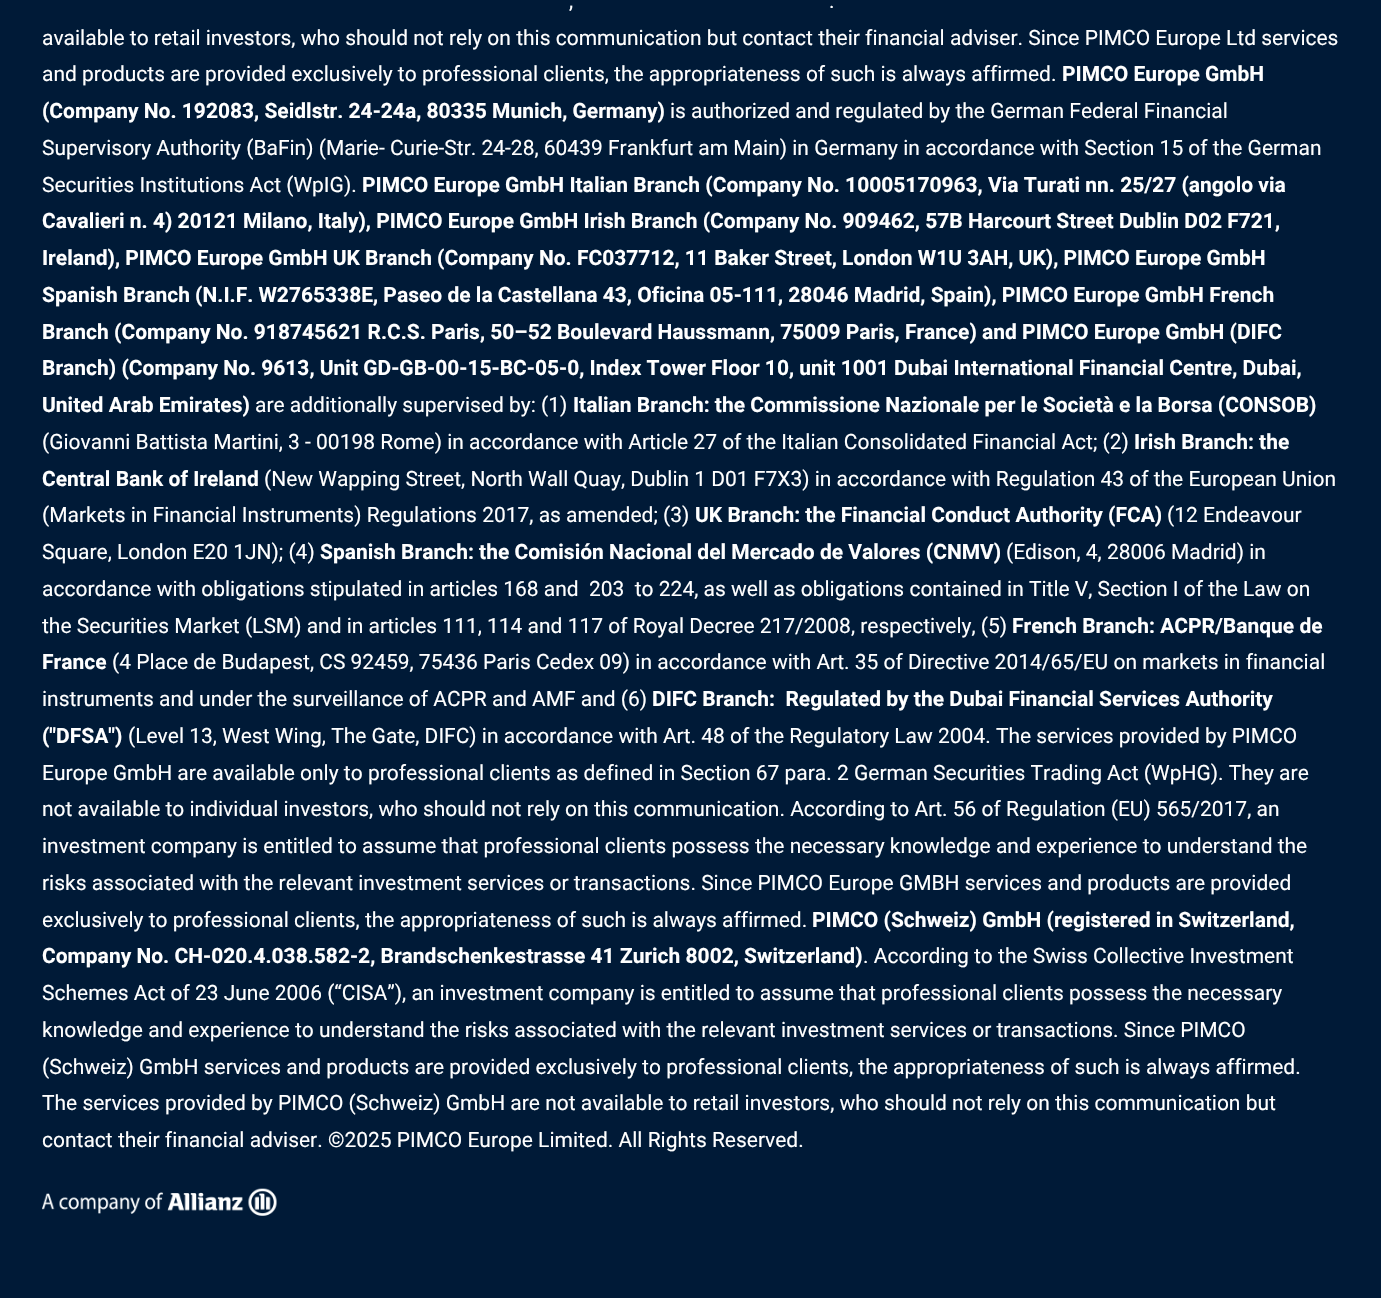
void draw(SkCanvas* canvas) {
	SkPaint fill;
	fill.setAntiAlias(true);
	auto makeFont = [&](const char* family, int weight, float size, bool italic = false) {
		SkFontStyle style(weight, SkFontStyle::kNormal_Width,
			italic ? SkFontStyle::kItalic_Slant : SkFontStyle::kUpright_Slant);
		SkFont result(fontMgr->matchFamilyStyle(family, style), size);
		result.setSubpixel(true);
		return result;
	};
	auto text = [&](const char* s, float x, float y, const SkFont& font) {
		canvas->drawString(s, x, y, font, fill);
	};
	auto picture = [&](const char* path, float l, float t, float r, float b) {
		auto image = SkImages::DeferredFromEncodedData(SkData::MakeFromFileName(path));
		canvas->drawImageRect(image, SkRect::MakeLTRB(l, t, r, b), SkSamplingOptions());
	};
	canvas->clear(0xFF001A37);
	picture("image0.png", 42, 1188, 277, 1216);
	auto font1 = makeFont("Roboto", 400, 21);
	fill.setColor(0xFFFFFFFF);
	text(",", 569, 8, font1);
	text(".", 829, 8, font1);
	text("available to retail investors, who should not rely on this communication but contact their financial adviser. Since PIMCO Europe Ltd services", 42, 45, font1);
	text("and products are provided exclusively to professional clients, the appropriateness of such is always affirmed.", 42, 81, font1);
	auto font2 = makeFont("Roboto", 700, 21);
	text("PIMCO Europe GmbH", 1062, 81, font2);
	text("(Company No. 192083, Seidlstr. 24-24a, 80335 Munich, Germany)", 42, 118, font2);
	text("is authorized and regulated by the German Federal Financial", 670, 118, font1);
	text("Supervisory Authority (BaFin) (Marie- Curie-Str. 24-28, 60439 Frankfurt am Main) in Germany in accordance with Section 15 of the German", 42, 155, font1);
	text("Securities Institutions Act (WpIG).", 42, 192, font1);
	text("PIMCO Europe GmbH Italian Branch (Company No. 10005170963, Via Turati nn. 25/27 (angolo via", 362, 192, font2);
	text("Cavalieri n. 4) 20121 Milano, Italy), PIMCO Europe GmbH Irish Branch (Company No. 909462, 57B Harcourt Street Dublin D02 F721,", 42, 228, font2);
	text("Ireland), PIMCO Europe GmbH UK Branch (Company No. FC037712, 11 Baker Street, London W1U 3AH, UK), PIMCO Europe GmbH", 42, 265, font2);
	text("Spanish Branch (N.I.F. W2765338E, Paseo de la Castellana 43, Oficina 05-111, 28046 Madrid, Spain), PIMCO Europe GmbH French", 42, 302, font2);
	text("Branch (Company No. 918745621 R.C.S. Paris, 50–52 Boulevard Haussmann, 75009 Paris, France) and PIMCO Europe GmbH (DIFC", 42, 339, font2);
	text("Branch) (Company No. 9613, Unit GD-GB-00-15-BC-05-0, Index Tower Floor 10, unit 1001 Dubai International Financial Centre, Dubai,", 42, 375, font2);
	text("United Arab Emirates)", 42, 412, font2);
	text("are additionally supervised by: (1)", 255, 412, font1);
	text("Italian Branch: the Commissione Nazionale per le Società e la Borsa (CONSOB)", 573, 412, font2);
	text("(Giovanni Battista Martini, 3 - 00198 Rome) in accordance with Article 27 of the Italian Consolidated Financial Act; (2)", 42, 449, font1);
	text("Irish Branch: the", 1134, 449, font2);
	text("Central Bank of Ireland", 42, 486, font2);
	text("(New Wapping Street, North Wall Quay, Dublin 1 D01 F7X3) in accordance with Regulation 43 of the European Union", 264, 486, font1);
	text("(Markets in Financial Instruments) Regulations 2017, as amended; (3)", 42, 522, font1);
	text("UK Branch: the Financial Conduct Authority (FCA)", 695, 522, font2);
	text("(12 Endeavour", 1167, 522, font1);
	text("Square, London E20 1JN); (4)", 42, 559, font1);
	text("Spanish Branch: the Comisión Nacional del Mercado de Valores (CNMV)", 320, 559, font2);
	text("(Edison, 4, 28006 Madrid) in", 1006, 559, font1);
	text("accordance with obligations stipulated in articles 168 and  203  to 224, as well as obligations contained in Title V, Section I of the Law on", 42, 596, font1);
	text("the Securities Market (LSM) and in articles 111, 114 and 117 of Royal Decree 217/2008, respectively, (5)", 42, 633, font1);
	text("French Branch: ACPR/Banque de", 1012, 633, font2);
	text("France", 42, 669, font2);
	text("(4 Place de Budapest, CS 92459, 75436 Paris Cedex 09) in accordance with Art. 35 of Directive 2014/65/EU on markets in financial", 112, 669, font1);
	text("instruments and under the surveillance of ACPR and AMF and (6)", 42, 706, font1);
	text("DIFC Branch:  Regulated by the Dubai Financial Services Authority", 652, 706, font2);
	text("(\"DFSA\")", 42, 743, font2);
	text("(Level 13, West Wing, The Gate, DIFC) in accordance with Art. 48 of the Regulatory Law 2004. The services provided by PIMCO", 128, 743, font1);
	text("Europe GmbH are available only to professional clients as defined in Section 67 para. 2 German Securities Trading Act (WpHG). They are", 42, 780, font1);
	text("not available to individual investors, who should not rely on this communication. According to Art. 56 of Regulation (EU) 565/2017, an", 42, 816, font1);
	text("investment company is entitled to assume that professional clients possess the necessary knowledge and experience to understand the", 42, 853, font1);
	text("risks associated with the relevant investment services or transactions. Since PIMCO Europe GMBH services and products are provided", 42, 890, font1);
	text("exclusively to professional clients, the appropriateness of such is always affirmed.", 42, 927, font1);
	text("PIMCO (Schweiz) GmbH (registered in Switzerland,", 812, 927, font2);
	text("Company No. CH-020.4.038.582-2, Brandschenkestrasse 41 Zurich 8002, Switzerland)", 42, 963, font2);
	text(". According to the Swiss Collective Investment", 863, 963, font1);
	text("Schemes Act of 23 June 2006 (“CISA”), an investment company is entitled to assume that professional clients possess the necessary", 42, 1000, font1);
	text("knowledge and experience to understand the risks associated with the relevant investment services or transactions. Since PIMCO", 42, 1037, font1);
	text("(Schweiz) GmbH services and products are provided exclusively to professional clients, the appropriateness of such is always affirmed.", 42, 1074, font1);
	text("The services provided by PIMCO (Schweiz) GmbH are not available to retail investors, who should not rely on this communication but", 42, 1110, font1);
	text("contact their financial adviser. ©2025 PIMCO Europe Limited. All Rights Reserved.", 42, 1147, font1);
}
